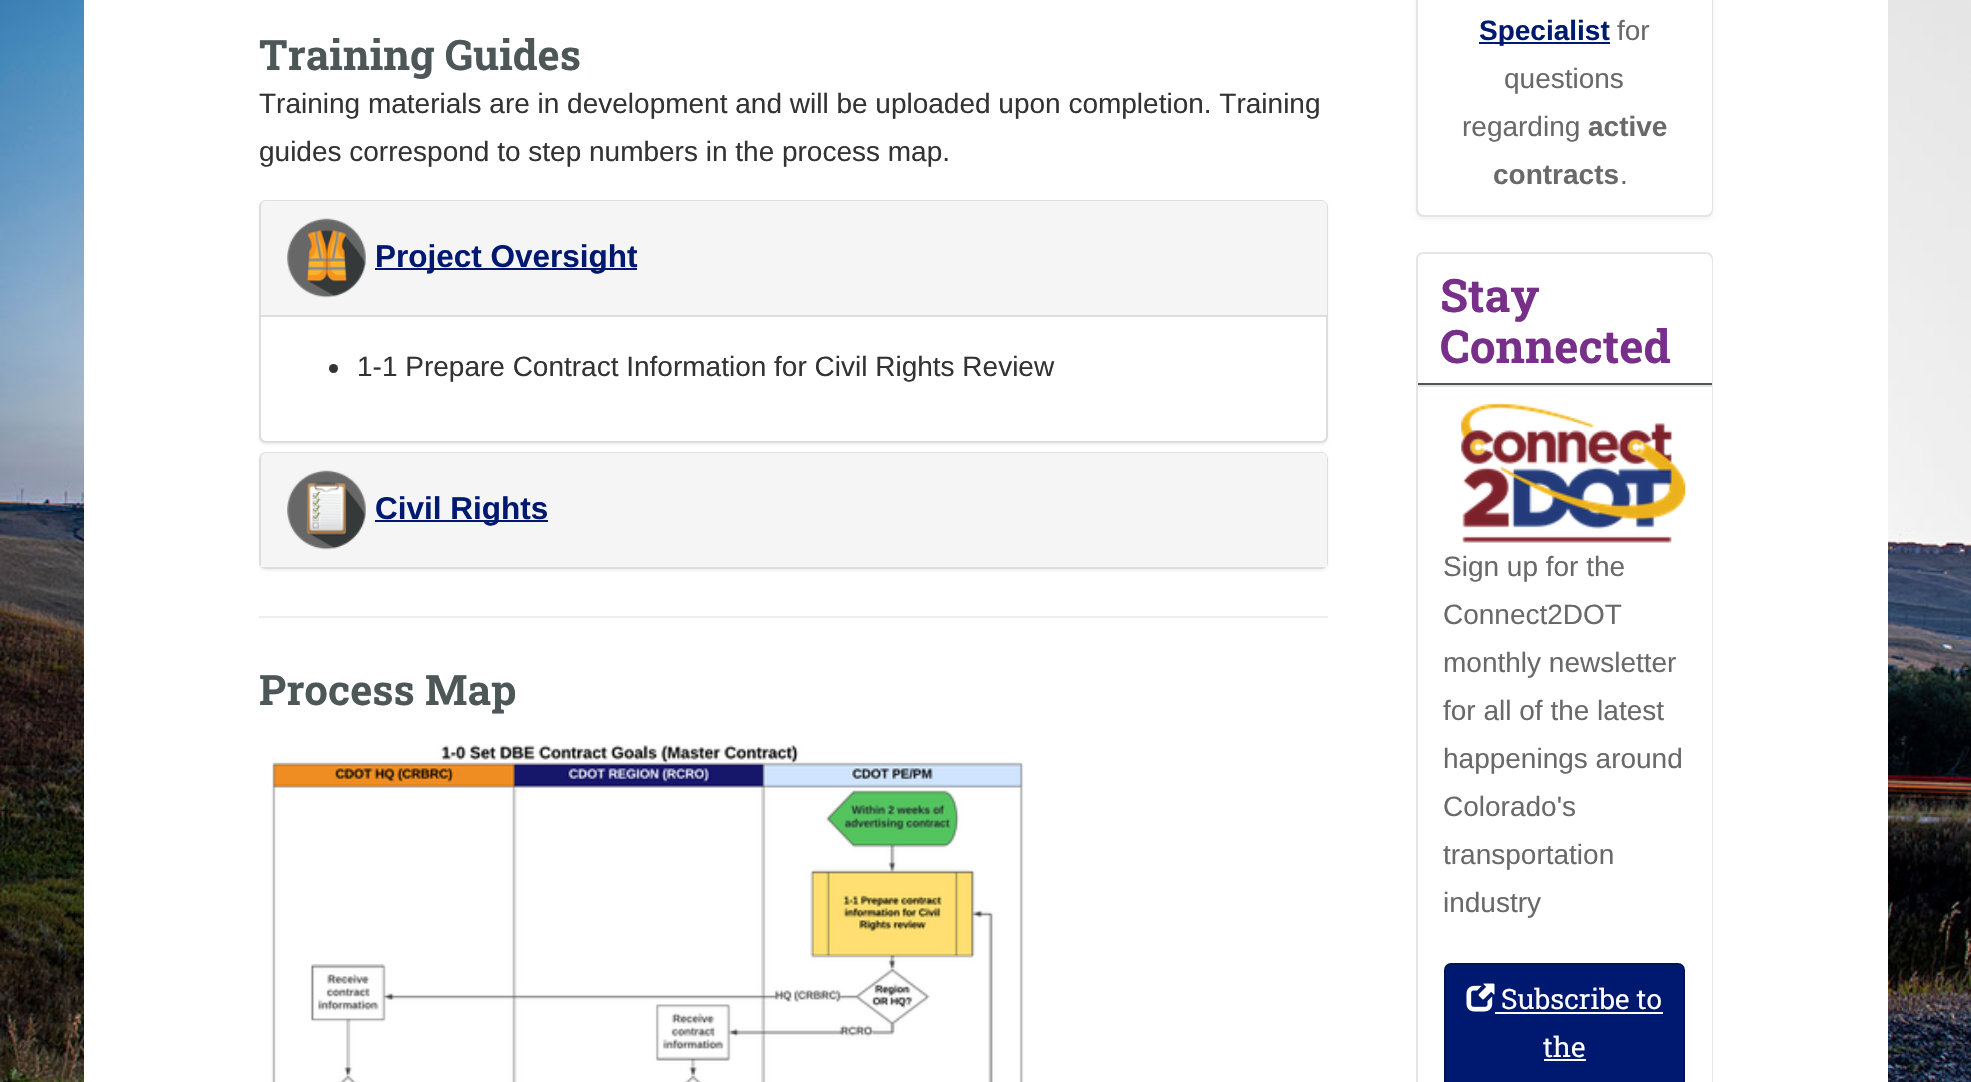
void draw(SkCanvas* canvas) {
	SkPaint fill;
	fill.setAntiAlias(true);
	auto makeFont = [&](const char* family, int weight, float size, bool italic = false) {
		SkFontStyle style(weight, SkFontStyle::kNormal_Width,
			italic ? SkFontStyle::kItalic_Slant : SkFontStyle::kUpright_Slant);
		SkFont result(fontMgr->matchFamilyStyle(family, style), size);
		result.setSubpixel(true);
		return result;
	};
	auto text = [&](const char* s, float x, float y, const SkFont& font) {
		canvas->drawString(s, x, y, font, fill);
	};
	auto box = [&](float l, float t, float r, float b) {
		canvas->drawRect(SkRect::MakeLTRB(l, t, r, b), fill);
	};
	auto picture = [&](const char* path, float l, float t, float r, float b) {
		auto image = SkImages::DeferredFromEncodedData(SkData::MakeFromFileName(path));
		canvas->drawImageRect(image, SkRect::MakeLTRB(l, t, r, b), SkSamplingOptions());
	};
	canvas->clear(0xFFFFFFFF);
	picture("image0.png", 0, 0, 1971, 1082);
	fill.setColor(0xFFFFFFFF);
	box(84, 0, 1888, 1082);
	fill.setColor(0x0D000000);
	fill.setMaskFilter(SkMaskFilter::MakeBlur(kNormal_SkBlurStyle, 1));
	canvas->drawRoundRect(SkRect::MakeLTRB(259, 201, 1328, 445), 7, 7, fill);
	fill.setMaskFilter(nullptr);
	fill.setColor(0xFFFFFFFF);
	canvas->drawRoundRect(SkRect::MakeLTRB(260, 201, 1327, 442), 6, 6, fill);
	fill.setStyle(SkPaint::kStroke_Style);
	fill.setStrokeWidth(2);
	fill.setColor(0xFFDDDDDD);
	canvas->drawRoundRect(SkRect::MakeLTRB(260, 201, 1327, 442), 6, 6, fill);
	fill.setStyle(SkPaint::kFill_Style);
	fill.setColor(0xFFF5F5F5);
	canvas->drawPath(SkPathBuilder().moveTo(266, 201).lineTo(1322, 201).cubicTo(1325, 201, 1327, 203, 1327, 206).lineTo(1327, 315).lineTo(261, 315).lineTo(261, 206).cubicTo(261, 203, 263, 201, 266, 201).close().detach(), fill);
	picture("image1.png", 287, 218, 366, 298);
	fill.setColor(0xFF001970);
	box(375, 268, 637, 270);
	fill.setColor(0xFFDDDDDD);
	box(261, 315, 1327, 317);
	fill.setColor(0xFF333333);
	canvas->drawCircle(333.5f, 368.5f, 4.5f, fill);
	fill.setColor(0x0D000000);
	fill.setMaskFilter(SkMaskFilter::MakeBlur(kNormal_SkBlurStyle, 1));
	canvas->drawRoundRect(SkRect::MakeLTRB(259, 453, 1328, 571), 7, 7, fill);
	fill.setMaskFilter(nullptr);
	fill.setStyle(SkPaint::kStroke_Style);
	fill.setColor(0xFFDDDDDD);
	canvas->drawRoundRect(SkRect::MakeLTRB(260, 453, 1327, 568), 6, 6, fill);
	fill.setStyle(SkPaint::kFill_Style);
	fill.setColor(0xFFF5F5F5);
	canvas->drawPath(SkPathBuilder().moveTo(266, 453).lineTo(1322, 453).cubicTo(1325, 453, 1327, 455, 1327, 458).lineTo(1327, 567).lineTo(261, 567).lineTo(261, 458).cubicTo(261, 455, 263, 453, 266, 453).close().detach(), fill);
	picture("image2.png", 287, 470, 366, 550);
	fill.setColor(0xFF001970);
	box(375, 520, 548, 522);
	fill.setColor(0xFFEEEEEE);
	box(259, 616, 1328, 618);
	picture("image3.png", 271, 745, 1024, 1082);
	fill.setColor(0x0D000000);
	fill.setMaskFilter(SkMaskFilter::MakeBlur(kNormal_SkBlurStyle, 2.5f));
	canvas->drawRoundRect(SkRect::MakeLTRB(1416, -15, 1713, 219), 7, 7, fill);
	fill.setMaskFilter(nullptr);
	fill.setStyle(SkPaint::kStroke_Style);
	fill.setColor(0xFFE5E5E5);
	canvas->drawRoundRect(SkRect::MakeLTRB(1417, -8, 1712, 216), 6, 6, fill);
	fill.setStyle(SkPaint::kFill_Style);
	fill.setColor(0xFFFFFFFF);
	canvas->drawPath(SkPathBuilder().moveTo(1418, -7).lineTo(1712, -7).lineTo(1712, 208).cubicTo(1712, 212, 1709, 215, 1705, 215).lineTo(1425, 215).cubicTo(1421, 215, 1418, 212, 1418, 208).close().detach(), fill);
	fill.setColor(0xFF001970);
	box(1479, 42, 1610, 44);
	fill.setStyle(SkPaint::kStroke_Style);
	fill.setColor(0xFFE5E5E5);
	canvas->drawRoundRect(SkRect::MakeLTRB(1417, 253, 1712, 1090), 6, 6, fill);
	fill.setStyle(SkPaint::kFill_Style);
	fill.setColor(0xFFFFFFFF);
	canvas->drawPath(SkPathBuilder().moveTo(1425, 254).lineTo(1705, 254).cubicTo(1709, 254, 1712, 257, 1712, 261).lineTo(1712, 385).lineTo(1418, 385).lineTo(1418, 261).cubicTo(1418, 257, 1421, 254, 1425, 254).close().detach(), fill);
	fill.setColor(0xFF4E5757);
	box(1418, 383, 1712, 385);
	fill.setColor(0xFFFFFFFF);
	box(1711, 387, 1712, 1082);
	fill.setColor(0xFFE5E5E5);
	box(1418, 385, 1712, 387);
	picture("image4.png", 1461, 404, 1686, 543);
	fill.setColor(0xFF001970);
	canvas->drawRoundRect(SkRect::MakeLTRB(1445, 964, 1684, 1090), 6, 6, fill);
	fill.setStyle(SkPaint::kStroke_Style);
	fill.setColor(0xFF001357);
	canvas->drawRoundRect(SkRect::MakeLTRB(1445, 964, 1684, 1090), 6, 6, fill);
	picture("image5.png", 1466, 983, 1495, 1012);
	fill.setStyle(SkPaint::kFill_Style);
	fill.setColor(0xFFFFFFFF);
	box(1495, 1012, 1663, 1014);
	box(1544, 1059, 1586, 1061);
	auto font1 = makeFont("Roboto Slab", 700, 42);
	fill.setColor(0xFF4E5757);
	text("Training Guides", 259, 70, font1);
	auto font2 = makeFont("Liberation Sans", 400, 28);
	fill.setColor(0xFF333333);
	text("Training materials are in development and will be uploaded upon completion. Training", 259, 113, font2);
	text("guides correspond to step numbers in the process map.", 259, 161, font2);
	auto font3 = makeFont("Liberation Sans", 700, 31.5f);
	fill.setColor(0xFF001970);
	text("Project Oversight", 375, 267, font3);
	fill.setColor(0xFF333333);
	text("1-1 Prepare Contract Information for Civil Rights Review", 357, 376, font2);
	fill.setColor(0xFF001970);
	text("Civil Rights", 375, 519, font3);
	fill.setColor(0xFF4E5757);
	text("Process Map", 259, 705, font1);
	auto font4 = makeFont("Liberation Sans", 700, 28);
	fill.setColor(0xFF001970);
	text("Specialist", 1479, 40, font4);
	fill.setColor(0xFF696969);
	text("for", 1617, 40, font2);
	text("questions", 1504, 88, font2);
	text("regarding", 1462, 136, font2);
	text("active", 1588, 136, font4);
	text("contracts", 1493, 184, font4);
	text(".", 1620, 184, font2);
	auto font5 = makeFont("Roboto Slab", 700, 46);
	fill.setColor(0xFF782F8A);
	text("Stay", 1440, 312, font5);
	text("Connected", 1440, 363, font5);
	fill.setColor(0xFF696969);
	text("Sign up for the", 1443, 576, font2);
	text("Connect2DOT", 1443, 624, font2);
	text("monthly newsletter", 1443, 672, font2);
	text("for all of the latest", 1443, 720, font2);
	text("happenings around", 1443, 768, font2);
	text("Colorado's", 1443, 816, font2);
	text("transportation", 1443, 864, font2);
	text("industry", 1443, 912, font2);
	auto font6 = makeFont("Roboto Slab", 400, 28);
	fill.setColor(0xFFFFFFFF);
	text("Subscribe to", 1501, 1009, font6);
	text("the", 1543, 1057, font6);
}
